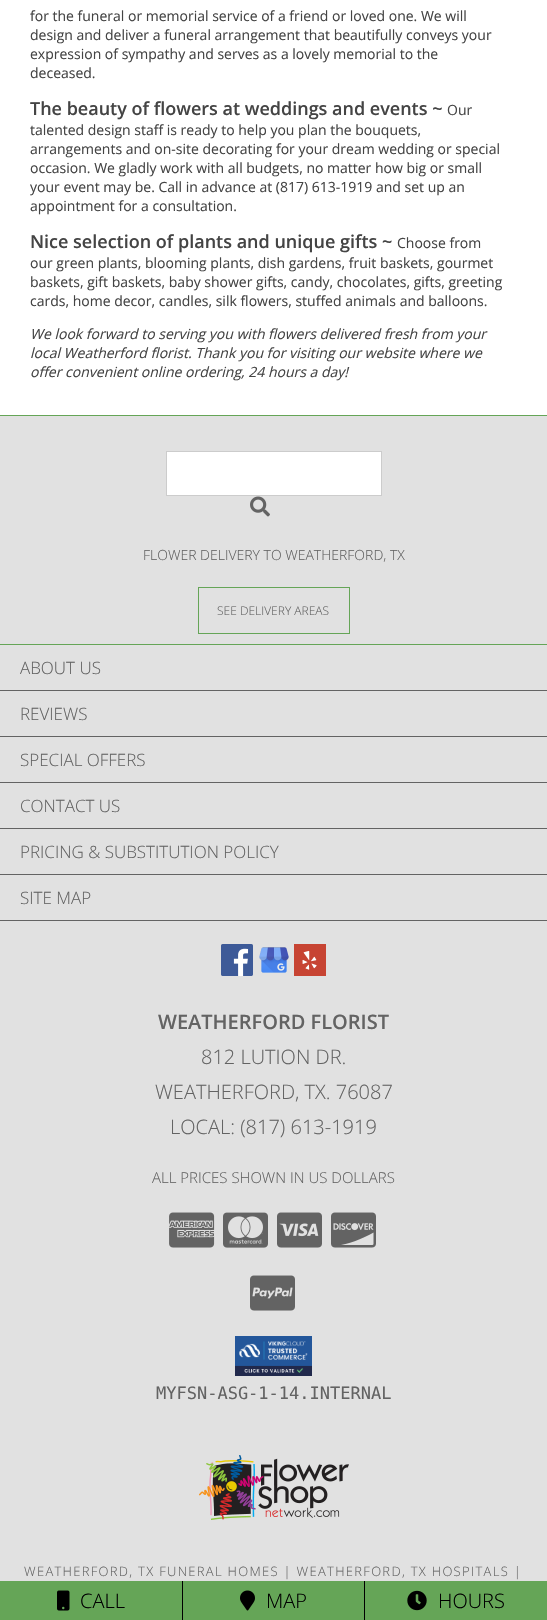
void draw(SkCanvas* canvas) {
	SkPaint fill;
	fill.setAntiAlias(true);
	auto makeFont = [&](const char* family, int weight, float size, bool italic = false) {
		SkFontStyle style(weight, SkFontStyle::kNormal_Width,
			italic ? SkFontStyle::kItalic_Slant : SkFontStyle::kUpright_Slant);
		SkFont result(fontMgr->matchFamilyStyle(family, style), size);
		result.setSubpixel(true);
		return result;
	};
	auto text = [&](const char* s, float x, float y, const SkFont& font) {
		canvas->drawString(s, x, y, font, fill);
	};
	auto spacedText = [&](const char* s, float x, float y, const SkFont& font, const SkPaint& ink, float letter, float word) {
		std::vector<SkGlyphID> glyphs(font.countText(s, strlen(s), SkTextEncoding::kUTF8));
		std::vector<float> xs(glyphs.size());
		font.textToGlyphs(s, strlen(s), SkTextEncoding::kUTF8, glyphs);
		font.getXPos(glyphs, xs, x);
		float extra = 0;
		for (size_t i = 0; i < glyphs.size(); i++) {
			xs[i] += extra;
			extra += letter + word * (glyphs[i] == font.unicharToGlyph(' '));
		}
		canvas->drawTextBlob(SkTextBlob::MakeFromPosHGlyphs(glyphs, xs, y, font), 0, 0, ink);
	};
	auto box = [&](float l, float t, float r, float b) {
		canvas->drawRect(SkRect::MakeLTRB(l, t, r, b), fill);
	};
	auto picture = [&](const char* path, float l, float t, float r, float b) {
		auto image = SkImages::DeferredFromEncodedData(SkData::MakeFromFileName(path));
		canvas->drawImageRect(image, SkRect::MakeLTRB(l, t, r, b), SkSamplingOptions());
	};
	canvas->clear(0xFFFFFFFF);
	fill.setColor(0xFFE1E1E1);
	box(0, 416, 547, 644);
	fill.setColor(0xFF65A557);
	box(0, 415, 547, 416);
	box(0, 644, 547, 645);
	fill.setColor(0xFFFFFFFF);
	canvas->drawRect(SkRect::MakeLTRB(166.5f, 451.5f, 381.5f, 495.5f), fill);
	fill.setStyle(SkPaint::kStroke_Style);
	fill.setStrokeWidth(1);
	fill.setColor(0xFFCCCCCC);
	canvas->drawRect(SkRect::MakeLTRB(166.5f, 451.5f, 381.5f, 495.5f), fill);
	picture("image0.png", 250, 496, 270, 517);
	fill.setColor(0xFF65A557);
	canvas->drawRect(SkRect::MakeLTRB(198.5f, 587.5f, 349.5f, 633.5f), fill);
	fill.setStyle(SkPaint::kFill_Style);
	fill.setColor(0xFFE1E1E1);
	box(0, 645, 547, 1581);
	fill.setColor(0xFF636363);
	box(0, 690, 547, 691);
	box(0, 736, 547, 737);
	box(0, 782, 547, 783);
	box(0, 828, 547, 829);
	box(0, 874, 547, 875);
	box(0, 920, 547, 921);
	picture("image1.png", 221, 944, 253, 976);
	picture("image2.png", 259, 947, 289, 973);
	picture("image3.png", 294, 944, 326, 976);
	picture("image4.png", 169, 1212, 215, 1248);
	picture("image5.png", 223, 1212, 268, 1248);
	picture("image6.png", 277, 1212, 322, 1248);
	picture("image7.png", 331, 1212, 376, 1248);
	picture("image8.png", 250, 1275, 295, 1311);
	picture("image9.png", 235, 1336, 312, 1376);
	picture("image10.png", 199, 1455, 349, 1520);
	fill.setColor(0xFF65A557);
	box(0, 1581, 182, 1620);
	picture("image11.png", 57, 1590, 70, 1611);
	box(183, 1581, 364, 1620);
	fill.setColor(0xFF000000);
	box(182, 1581, 183, 1620);
	picture("image12.png", 240, 1590, 255, 1611);
	fill.setColor(0xFF65A557);
	box(365, 1581, 547, 1620);
	fill.setColor(0xFF000000);
	box(364, 1581, 365, 1620);
	picture("image13.png", 407, 1590, 427, 1611);
	auto font1 = makeFont("Open Sans", 400, 14);
	fill.setColor(0xFF444444);
	text("for the funeral or memorial service of a friend or loved one. We will", 30, 21, font1);
	text("design and deliver a funeral arrangement that beautifully conveys your", 30, 40, font1);
	text("expression of sympathy and serves as a lovely memorial to the", 30, 59, font1);
	text("deceased.", 30, 78, font1);
	auto font2 = makeFont("Open Sans", 600, 18);
	text("The beauty of flowers at weddings and events ~", 30, 115, font2);
	text("Our", 447, 115, font1);
	text("talented design staff is ready to help you plan the bouquets,", 30, 135, font1);
	text("arrangements and on-site decorating for your dream wedding or special", 30, 154, font1);
	text("occasion. We gladly work with all budgets, no matter how big or small", 30, 173, font1);
	text("your event may be. Call in advance at (817) 613-1919 and set up an", 30, 192, font1);
	text("appointment for a consultation.", 30, 211, font1);
	text("Nice selection of plants and unique gifts ~", 30, 248, font2);
	text("Choose from", 397, 248, font1);
	text("our green plants, blooming plants, dish gardens, fruit baskets, gourmet", 30, 268, font1);
	text("baskets, gift baskets, baby shower gifts, candy, chocolates, gifts, greeting", 30, 287, font1);
	text("cards, home decor, candles, silk flowers, stuffed animals and balloons.", 30, 306, font1);
	auto font3 = makeFont("Open Sans", 400, 14, true);
	text("We look forward to serving you with flowers delivered fresh from your", 30, 339, font3);
	text("local Weatherford florist. Thank you for visiting our website where we", 30, 358, font3);
	text("offer convenient online ordering, 24 hours a day!", 30, 377, font3);
	auto font4 = makeFont("Open Sans", 300, 14);
	fill.setColor(0xFF636363);
	text("FLOWER DELIVERY TO WEATHERFORD, TX", 143, 560, font4);
	auto font5 = makeFont("Open Sans", 300, 12);
	text("SEE DELIVERY AREAS", 217, 615, font5);
	auto font6 = makeFont("Open Sans", 300, 17);
	text("ABOUT US", 20, 674, font6);
	text("REVIEWS", 20, 720, font6);
	text("SPECIAL OFFERS", 20, 766, font6);
	text("CONTACT US", 20, 812, font6);
	text("PRICING & SUBSTITUTION POLICY", 20, 858, font6);
	text("SITE MAP", 20, 904, font6);
	auto font7 = makeFont("Open Sans", 600, 20);
	text("WEATHERFORD FLORIST", 158, 1029, font7);
	auto font8 = makeFont("Open Sans", 300, 20);
	text("812 LUTION DR.", 201, 1064, font8);
	text("WEATHERFORD, TX. 76087", 155, 1099, font8);
	text("LOCAL: (817) 613-1919", 170, 1134, font8);
	auto font9 = makeFont("Open Sans", 300, 15);
	text("ALL PRICES SHOWN IN US DOLLARS", 152, 1183, font9);
	auto font10 = makeFont("DejaVu Sans Mono", 400, 17);
	text("MYFSN-ASG-1-14.INTERNAL", 156, 1399, font10);
	auto font11 = makeFont("Open Sans", 300, 13);
	spacedText("WEATHERFORD, TX FUNERAL HOMES | WEATHERFORD, TX HOSPITALS |", 24, 1576, font11, fill, 1.3f, 0);
	fill.setColor(0xFF000000);
	text("CALL", 80, 1608, font8);
	text("MAP", 266, 1608, font8);
	text("HOURS", 438, 1608, font8);
}
